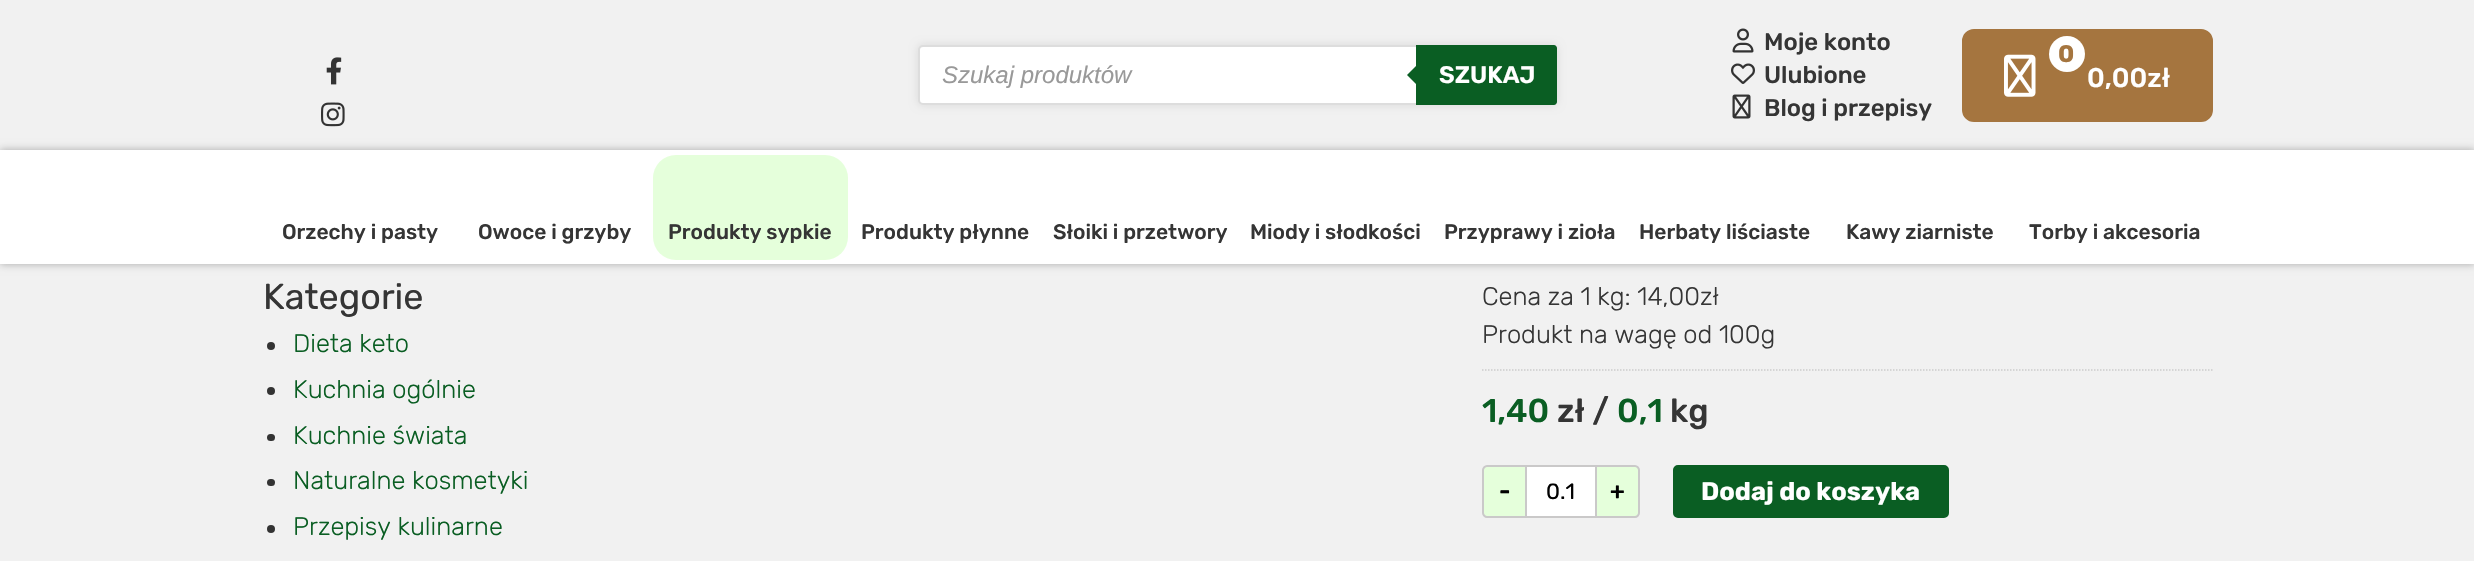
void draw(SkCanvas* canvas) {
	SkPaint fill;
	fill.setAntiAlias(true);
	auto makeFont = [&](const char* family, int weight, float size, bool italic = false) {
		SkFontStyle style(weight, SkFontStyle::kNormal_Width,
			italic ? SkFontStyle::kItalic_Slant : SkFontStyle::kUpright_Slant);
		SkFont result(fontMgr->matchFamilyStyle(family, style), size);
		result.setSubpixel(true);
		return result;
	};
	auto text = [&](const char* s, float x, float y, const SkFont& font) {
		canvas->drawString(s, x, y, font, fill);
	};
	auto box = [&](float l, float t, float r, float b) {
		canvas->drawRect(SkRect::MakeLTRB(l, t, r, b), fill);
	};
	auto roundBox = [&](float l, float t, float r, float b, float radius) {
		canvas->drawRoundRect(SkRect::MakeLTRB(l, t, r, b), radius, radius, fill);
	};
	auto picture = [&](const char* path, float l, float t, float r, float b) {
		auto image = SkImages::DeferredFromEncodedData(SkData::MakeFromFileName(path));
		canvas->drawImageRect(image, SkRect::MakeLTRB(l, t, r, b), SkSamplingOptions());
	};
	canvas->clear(0xFFF1F1F1);
	picture("image0.png", 326, 57, 342, 85);
	picture("image1.png", 321, 102, 345, 127);
	fill.setColor(0x1A000000);
	fill.setMaskFilter(SkMaskFilter::MakeBlur(kNormal_SkBlurStyle, 4));
	canvas->drawRoundRect(SkRect::MakeLTRB(918, 45, 1557, 105), 5, 5, fill);
	fill.setMaskFilter(nullptr);
	fill.setColor(0xFFFFFFFF);
	canvas->drawRoundRect(SkRect::MakeLTRB(919, 46, 1556, 104), 4, 4, fill);
	fill.setStyle(SkPaint::kStroke_Style);
	fill.setStrokeWidth(2);
	fill.setColor(0xFFDDDDDD);
	canvas->drawRoundRect(SkRect::MakeLTRB(919, 46, 1556, 104), 4, 4, fill);
	fill.setStyle(SkPaint::kFill_Style);
	fill.setColor(0xFF0A5E23);
	canvas->drawPath(SkPathBuilder().moveTo(1416, 45).lineTo(1554, 45).cubicTo(1555.5f, 45, 1557, 46.5f, 1557, 48).lineTo(1557, 102).cubicTo(1557, 103.5f, 1555.5f, 105, 1554, 105).lineTo(1416, 105).close().detach(), fill);
	canvas->drawPath(SkPathBuilder().moveTo(1419, 63).lineTo(1419, 87).lineTo(1407, 75).close().detach(), fill);
	picture("image2.png", 1732, 28, 1754, 53);
	picture("image3.png", 1731, 63, 1755, 84);
	picture("image4.png", 1732, 94, 1751, 119);
	fill.setColor(0xFFA5753F);
	canvas->drawRoundRect(SkRect::MakeLTRB(1963.5f, 30.5f, 2211.5f, 120.5f), 10.5f, 10.5f, fill);
	fill.setStyle(SkPaint::kStroke_Style);
	fill.setStrokeWidth(3);
	canvas->drawRoundRect(SkRect::MakeLTRB(1963.5f, 30.5f, 2211.5f, 120.5f), 10.5f, 10.5f, fill);
	picture("image5.png", 2004, 54, 2036, 97);
	fill.setStyle(SkPaint::kFill_Style);
	fill.setColor(0xFFFFFFFF);
	canvas->drawCircle(2067, 54, 18, fill);
	fill.setColor(0x4D000000);
	fill.setMaskFilter(SkMaskFilter::MakeBlur(kNormal_SkBlurStyle, 4));
	canvas->drawRect(SkRect::MakeLTRB(0, 150, 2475, 264), fill);
	fill.setMaskFilter(nullptr);
	fill.setColor(0xFFFFFFFF);
	box(0, 150, 2474, 264);
	fill.setColor(0xFFE5FFDB);
	roundBox(653, 155, 848, 260, 23);
	fill.setColor(0xFF333333);
	canvas->drawCircle(271, 346, 4, fill);
	canvas->drawCircle(271, 391, 4, fill);
	roundBox(267, 434, 275, 441, 3.5f);
	roundBox(267, 479, 275, 486, 3.5f);
	canvas->drawCircle(271, 529, 4, fill);
	fill.setStyle(SkPaint::kStroke_Style);
	fill.setStrokeWidth(1.5f);
	fill.setColor(0xFFCCCCCC);
	fill.setPathEffect(SkDashPathEffect::Make({{1.5f, 1.5f}}, 0));
	canvas->drawPath(SkPathBuilder().moveTo(1482, 370).lineTo(2212.5f, 370).detach(), fill);
	fill.setPathEffect(nullptr);
	fill.setStyle(SkPaint::kFill_Style);
	fill.setColor(0xFFE5FFDB);
	canvas->drawPath(SkPathBuilder().moveTo(1487, 466).lineTo(1526, 466).lineTo(1526, 517).lineTo(1487, 517).cubicTo(1485, 517, 1483, 515, 1483, 513).lineTo(1483, 470).cubicTo(1483, 468, 1485, 466, 1487, 466).close().detach(), fill);
	fill.setStyle(SkPaint::kStroke_Style);
	fill.setStrokeWidth(2);
	fill.setColor(0xFFCAC9C9);
	canvas->drawPath(SkPathBuilder().moveTo(1487, 466).lineTo(1526, 466).lineTo(1526, 517).lineTo(1487, 517).cubicTo(1485, 517, 1483, 515, 1483, 513).lineTo(1483, 470).cubicTo(1483, 468, 1485, 466, 1487, 466).close().detach(), fill);
	fill.setStyle(SkPaint::kFill_Style);
	fill.setColor(0xFFFFFFFF);
	box(1527, 467, 1595, 516);
	fill.setColor(0xFFCAC9C9);
	box(1527, 465, 1595, 467);
	box(1527, 516, 1595, 518);
	fill.setColor(0xFFE5FFDB);
	canvas->drawPath(SkPathBuilder().moveTo(1596, 466).lineTo(1635, 466).cubicTo(1637, 466, 1639, 468, 1639, 470).lineTo(1639, 513).cubicTo(1639, 515, 1637, 517, 1635, 517).lineTo(1596, 517).close().detach(), fill);
	fill.setStyle(SkPaint::kStroke_Style);
	fill.setColor(0xFFCAC9C9);
	canvas->drawPath(SkPathBuilder().moveTo(1596, 466).lineTo(1635, 466).cubicTo(1637, 466, 1639, 468, 1639, 470).lineTo(1639, 513).cubicTo(1639, 515, 1637, 517, 1635, 517).lineTo(1596, 517).close().detach(), fill);
	fill.setStyle(SkPaint::kFill_Style);
	fill.setColor(0xFF0A5E23);
	canvas->drawRoundRect(SkRect::MakeLTRB(1674.5f, 466.5f, 1947.5f, 516.5f), 3.5f, 3.5f, fill);
	fill.setStyle(SkPaint::kStroke_Style);
	fill.setStrokeWidth(3);
	canvas->drawRoundRect(SkRect::MakeLTRB(1674.5f, 466.5f, 1947.5f, 516.5f), 3.5f, 3.5f, fill);
	auto font1 = makeFont("Liberation Sans", 400, 24, true);
	fill.setStyle(SkPaint::kFill_Style);
	fill.setColor(0xFF999999);
	text("Szukaj produktów", 942, 83, font1);
	auto font2 = makeFont("Rubik", 600, 24);
	fill.setColor(0xFFFFFFFF);
	text("SZUKAJ", 1439, 83, font2);
	auto font3 = makeFont("Rubik", 500, 24);
	fill.setColor(0xFF353535);
	text("Moje konto", 1764, 50, font3);
	text("Ulubione", 1764, 83, font3);
	text("Blog i przepisy", 1764, 116, font3);
	auto font4 = makeFont("Rubik", 700, 24);
	fill.setColor(0xFFA5753F);
	text("0", 2058, 62, font4);
	auto font5 = makeFont("Rubik", 500, 27);
	fill.setColor(0xFFFFFFFF);
	text("0,00zł", 2087, 87, font5);
	auto font6 = makeFont("Rubik", 500, 21);
	fill.setColor(0xFF353535);
	text("Orzechy i pasty", 282, 239, font6);
	text("Owoce i grzyby", 478, 239, font6);
	text("Produkty sypkie", 668, 239, font6);
	text("Produkty płynne", 861, 239, font6);
	text("Słoiki i przetwory", 1053, 239, font6);
	text("Miody i słodkości", 1250, 239, font6);
	text("Przyprawy i zioła", 1444, 239, font6);
	text("Herbaty liściaste", 1639, 239, font6);
	text("Kawy ziarniste", 1846, 239, font6);
	text("Torby i akcesoria", 2029, 239, font6);
	auto font7 = makeFont("Rubik", 400, 36);
	text("Kategorie", 263, 309, font7);
	auto font8 = makeFont("Rubik", 300, 25.5f);
	fill.setColor(0xFF0A5E23);
	text("Dieta keto", 293, 352, font8);
	text("Kuchnia ogólnie", 293, 398, font8);
	text("Kuchnie świata", 293, 444, font8);
	text("Naturalne kosmetyki", 293, 489, font8);
	text("Przepisy kulinarne", 293, 535, font8);
	fill.setColor(0xFF353535);
	text("Cena za 1 kg: 14,00zł", 1482, 305, font8);
	text("Produkt na wagę od 100g", 1482, 343, font8);
	auto font9 = makeFont("Rubik", 500, 33);
	fill.setColor(0xFF0A5E23);
	text("1,40", 1482, 422, font9);
	fill.setColor(0xFF353535);
	text("zł /", 1557, 422, font9);
	fill.setColor(0xFF0A5E23);
	text("0,1", 1617, 422, font9);
	fill.setColor(0xFF353535);
	text("kg", 1670, 422, font9);
	fill.setColor(0xFF000000);
	text("-", 1499, 499, font2);
	auto font10 = makeFont("Rubik", 400, 22);
	text("0.1", 1546, 499, font10);
	text("+", 1610, 499, font2);
	auto font11 = makeFont("Rubik", 700, 25.5f);
	fill.setColor(0xFFFFFFFF);
	text("Dodaj do koszyka", 1701, 500, font11);
}
